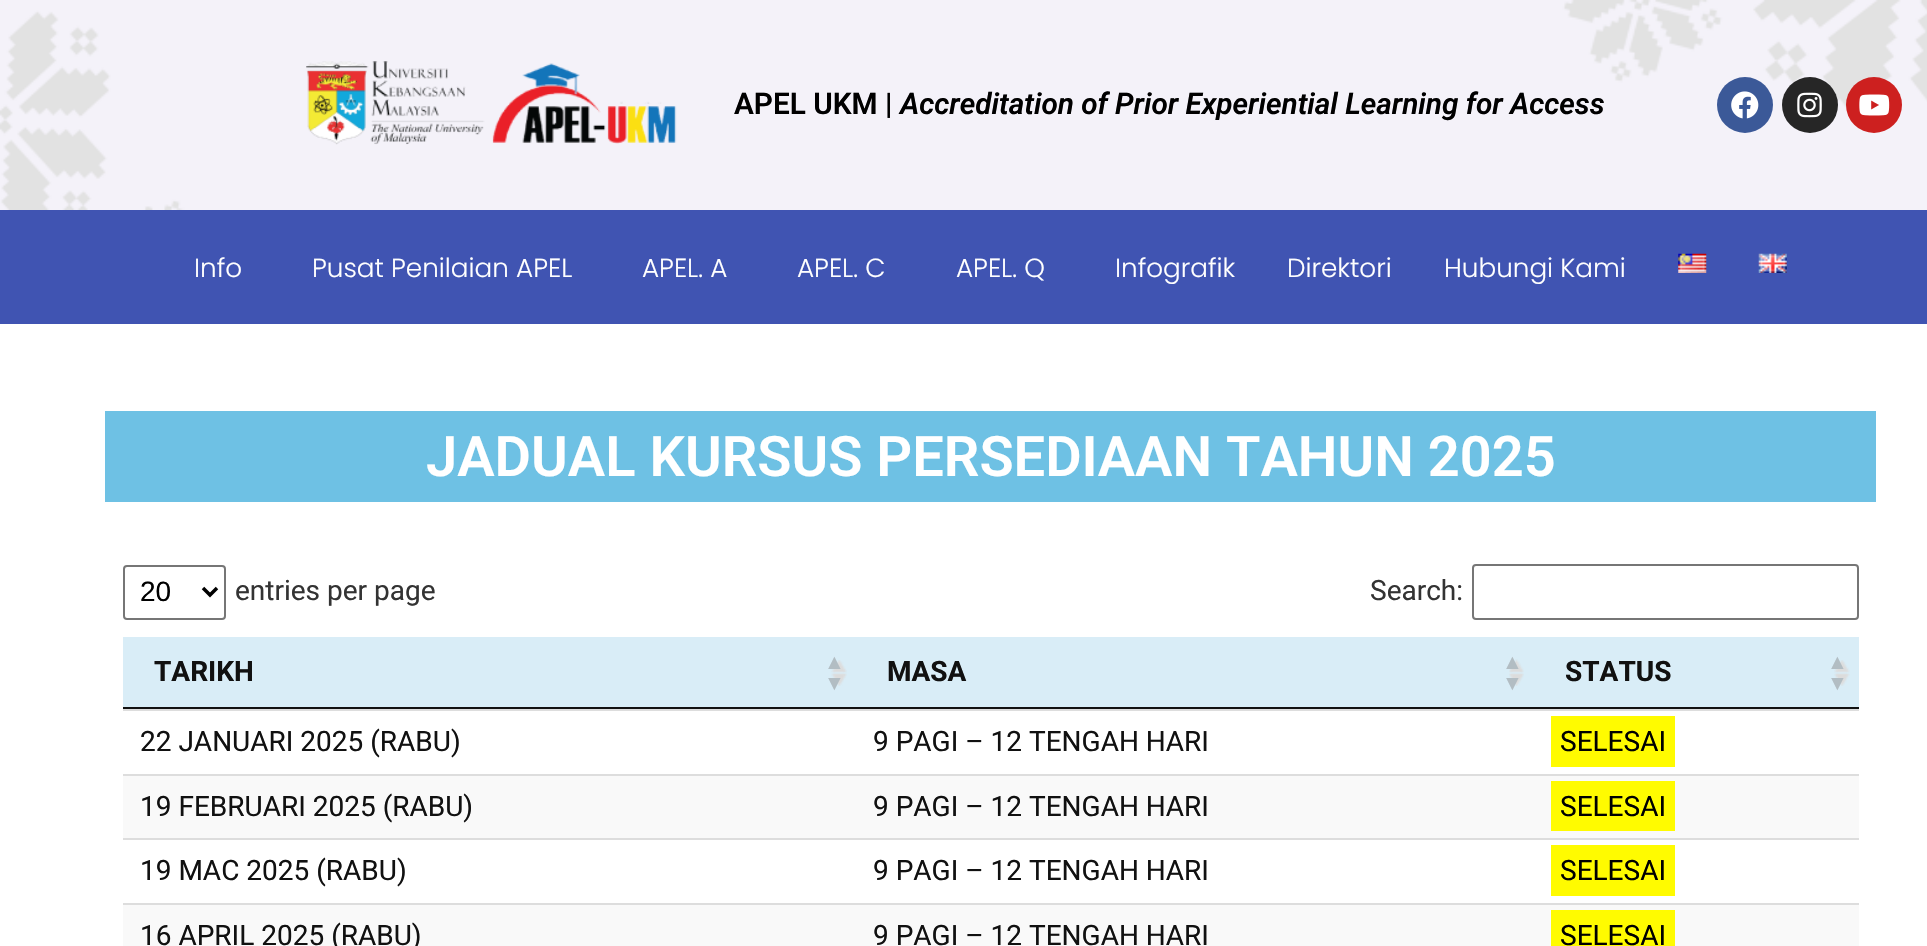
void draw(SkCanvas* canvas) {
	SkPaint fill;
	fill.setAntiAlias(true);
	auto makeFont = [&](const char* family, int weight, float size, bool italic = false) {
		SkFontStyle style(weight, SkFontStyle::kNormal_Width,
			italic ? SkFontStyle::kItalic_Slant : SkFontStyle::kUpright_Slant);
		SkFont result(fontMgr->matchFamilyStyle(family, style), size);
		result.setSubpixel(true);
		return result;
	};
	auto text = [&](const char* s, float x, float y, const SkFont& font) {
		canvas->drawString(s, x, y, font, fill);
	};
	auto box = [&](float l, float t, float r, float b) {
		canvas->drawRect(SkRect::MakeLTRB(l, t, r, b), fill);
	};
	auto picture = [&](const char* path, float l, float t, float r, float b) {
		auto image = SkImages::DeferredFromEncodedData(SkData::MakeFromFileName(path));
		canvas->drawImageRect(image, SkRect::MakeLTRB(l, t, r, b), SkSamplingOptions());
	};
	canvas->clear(0xFFFFFFFF);
	picture("image0.png", 0, 0, 1927, 210);
	picture("image1.png", 306, 61, 677, 145);
	fill.setColor(0xFF3B5998);
	canvas->drawCircle(1745, 105, 28, fill);
	picture("image2.png", 1731, 91, 1759, 119);
	fill.setColor(0xFF262626);
	canvas->drawCircle(1810, 105, 28, fill);
	picture("image3.png", 1797, 92, 1822, 118);
	fill.setColor(0xFFCD201F);
	canvas->drawCircle(1874, 105, 28, fill);
	picture("image4.png", 1859, 94, 1890, 116);
	fill.setColor(0xFF4054B2);
	box(0, 210, 1927, 324);
	picture("image5.png", 1678, 253, 1707, 273);
	picture("image6.png", 1758, 253, 1787, 273);
	fill.setColor(0xFF6EC1E4);
	box(105, 411, 1876, 502);
	fill.setStyle(SkPaint::kStroke_Style);
	fill.setStrokeWidth(2);
	fill.setColor(0xFF767676);
	canvas->drawRoundRect(SkRect::MakeLTRB(124, 566, 225, 619), 3, 3, fill);
	fill.setStrokeWidth(3.5f);
	fill.setColor(0xFF000000);
	canvas->drawPath(SkPathBuilder().moveTo(203, 588).lineTo(210, 595).lineTo(217, 588).detach(), fill);
	fill.setStrokeWidth(2);
	fill.setColor(0xFF767676);
	canvas->drawRoundRect(SkRect::MakeLTRB(1473, 565, 1858, 619), 3, 3, fill);
	fill.setStyle(SkPaint::kFill_Style);
	fill.setColor(0xFFD9EDF7);
	box(123, 637, 1859, 707);
	picture("image7.png", 831, 660, 847, 686);
	fill.setColor(0xFF111111);
	box(123, 707, 1859, 709);
	picture("image8.png", 1509, 659, 1524, 686);
	picture("image9.png", 1834, 660, 1850, 686);
	fill.setColor(0xFFDDDDDD);
	box(123, 709, 1859, 711);
	fill.setColor(0xFFFFFB00);
	box(1551, 716, 1675, 767);
	fill.setColor(0xFFF9F9F9);
	box(123, 776, 1859, 838);
	fill.setColor(0xFFDDDDDD);
	box(123, 774, 1859, 776);
	fill.setColor(0xFFFFFB00);
	box(1551, 781, 1675, 831);
	fill.setColor(0xFFDDDDDD);
	box(123, 838, 1859, 840);
	fill.setColor(0xFFFFFB00);
	box(1551, 845, 1675, 896);
	fill.setColor(0xFFF9F9F9);
	box(123, 905, 1859, 946);
	fill.setColor(0xFFDDDDDD);
	box(123, 903, 1859, 905);
	fill.setColor(0xFFFFFB00);
	box(1551, 910, 1675, 946);
	auto font1 = makeFont("Roboto", 600, 29.75f);
	fill.setColor(0xFF000000);
	text("APEL UKM |", 734, 114, font1);
	auto font2 = makeFont("Roboto", 600, 29.75f, true);
	text("Accreditation of Prior Experiential Learning for Access", 900, 114, font2);
	auto font3 = makeFont("Poppins", 300, 26.25f);
	fill.setColor(0xFFFFFFFF);
	text("Info", 194, 277, font3);
	text("Pusat Penilaian APEL", 312, 277, font3);
	text("APEL. A", 642, 277, font3);
	text("APEL. C", 797, 277, font3);
	text("APEL. Q", 956, 277, font3);
	text("Infografik", 1115, 277, font3);
	text("Direktori", 1287, 277, font3);
	text("Hubungi Kami", 1444, 277, font3);
	auto font4 = makeFont("Roboto", 600, 56);
	text("JADUAL KURSUS PERSEDIAAN TAHUN 2025", 426, 476, font4);
	auto font5 = makeFont("Liberation Sans", 400, 28);
	fill.setColor(0xFF000000);
	text("20", 140, 601, font5);
	auto font6 = makeFont("Roboto", 400, 28);
	fill.setColor(0xFF333333);
	text("entries per page", 235, 600, font6);
	text("Search:", 1370, 600, font6);
	auto font7 = makeFont("Roboto", 700, 28);
	fill.setColor(0xFF111111);
	text("TARIKH", 154, 681, font7);
	auto font8 = makeFont("Liberation Sans", 700, 21);
	fill.setColor(0xFFB2BDC3);
	text("▲", 824, 669, font8);
	text("▼", 824, 690, font8);
	fill.setColor(0xFF111111);
	text("MASA", 887, 681, font7);
	fill.setColor(0xFFB2BDC3);
	text("▲", 1502, 669, font8);
	text("▼", 1502, 690, font8);
	fill.setColor(0xFF111111);
	text("STATUS", 1565, 681, font7);
	fill.setColor(0xFFB2BDC3);
	text("▲", 1827, 669, font8);
	text("▼", 1827, 690, font8);
	fill.setColor(0xFF111111);
	text("22 JANUARI 2025 (RABU)", 140, 751, font6);
	text("9 PAGI – 12 TENGAH HARI", 873, 751, font6);
	fill.setColor(0xFF000000);
	text("SELESAI", 1560, 751, font6);
	fill.setColor(0xFF111111);
	text("19 FEBRUARI 2025 (RABU)", 140, 816, font6);
	text("9 PAGI – 12 TENGAH HARI", 873, 816, font6);
	fill.setColor(0xFF000000);
	text("SELESAI", 1560, 816, font6);
	fill.setColor(0xFF111111);
	text("19 MAC 2025 (RABU)", 140, 880, font6);
	text("9 PAGI – 12 TENGAH HARI", 873, 880, font6);
	fill.setColor(0xFF000000);
	text("SELESAI", 1560, 880, font6);
	fill.setColor(0xFF111111);
	text("16 APRIL 2025 (RABU)", 140, 945, font6);
	text("9 PAGI – 12 TENGAH HARI", 873, 945, font6);
	fill.setColor(0xFF000000);
	text("SELESAI", 1560, 945, font6);
}
